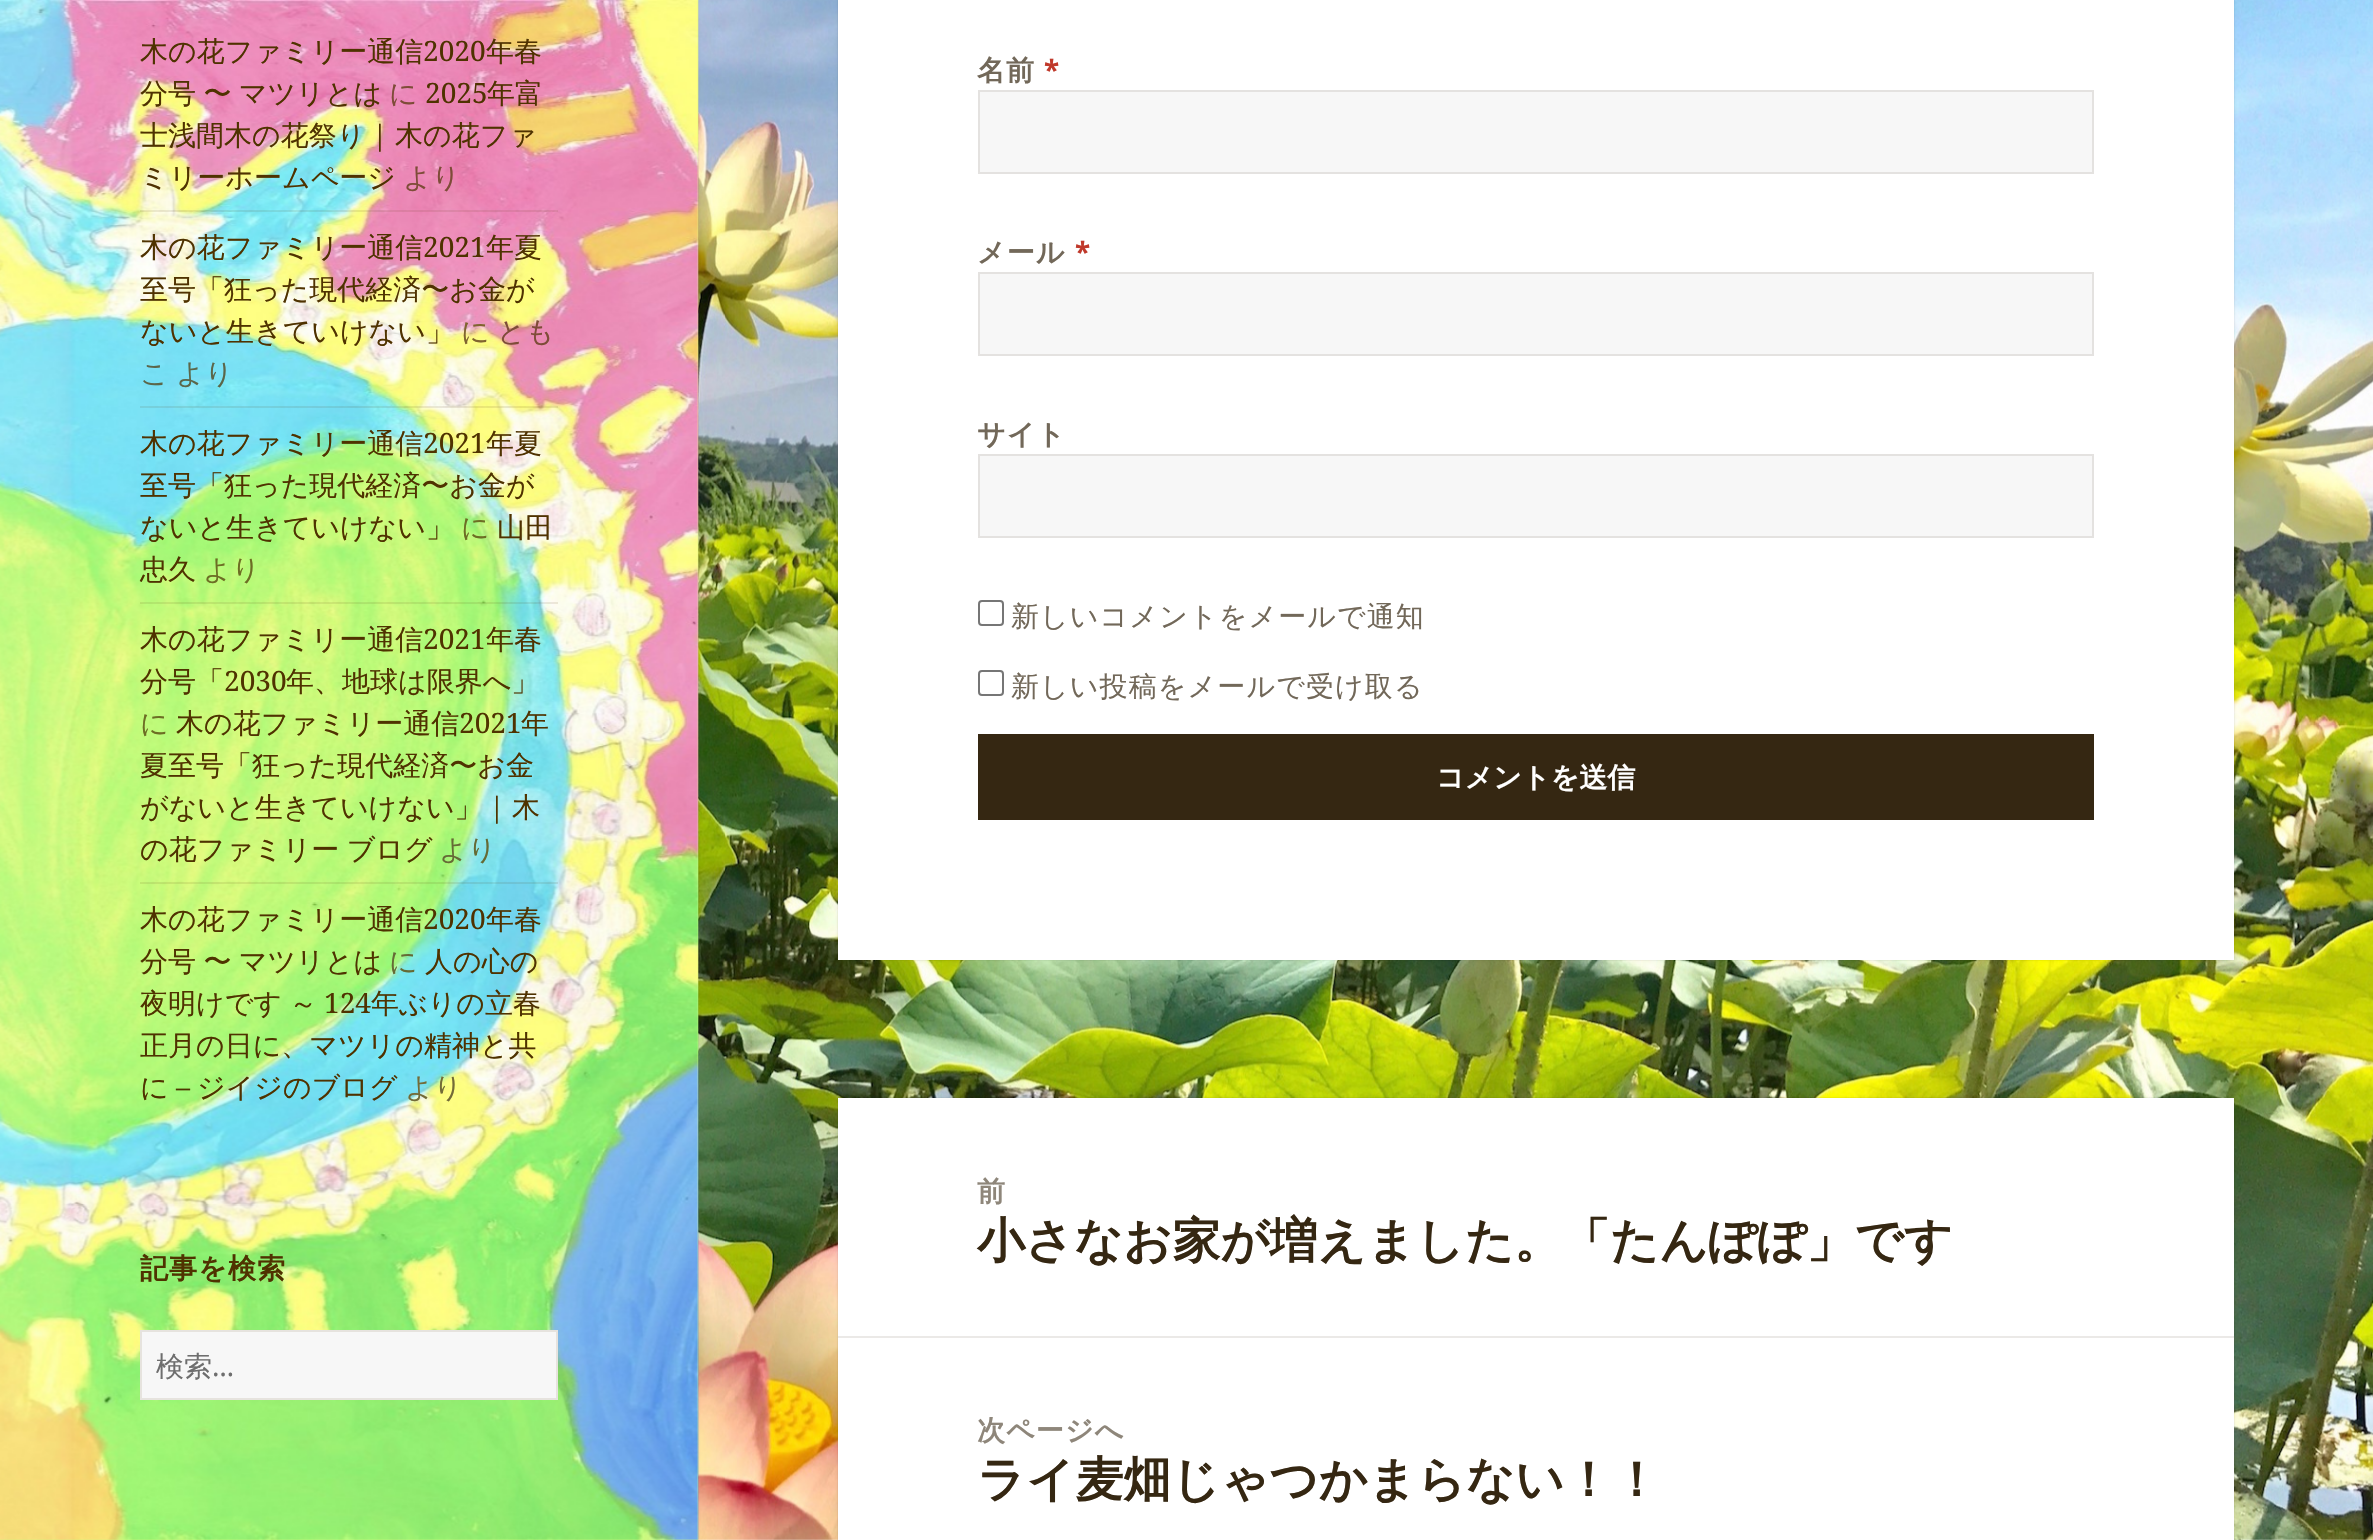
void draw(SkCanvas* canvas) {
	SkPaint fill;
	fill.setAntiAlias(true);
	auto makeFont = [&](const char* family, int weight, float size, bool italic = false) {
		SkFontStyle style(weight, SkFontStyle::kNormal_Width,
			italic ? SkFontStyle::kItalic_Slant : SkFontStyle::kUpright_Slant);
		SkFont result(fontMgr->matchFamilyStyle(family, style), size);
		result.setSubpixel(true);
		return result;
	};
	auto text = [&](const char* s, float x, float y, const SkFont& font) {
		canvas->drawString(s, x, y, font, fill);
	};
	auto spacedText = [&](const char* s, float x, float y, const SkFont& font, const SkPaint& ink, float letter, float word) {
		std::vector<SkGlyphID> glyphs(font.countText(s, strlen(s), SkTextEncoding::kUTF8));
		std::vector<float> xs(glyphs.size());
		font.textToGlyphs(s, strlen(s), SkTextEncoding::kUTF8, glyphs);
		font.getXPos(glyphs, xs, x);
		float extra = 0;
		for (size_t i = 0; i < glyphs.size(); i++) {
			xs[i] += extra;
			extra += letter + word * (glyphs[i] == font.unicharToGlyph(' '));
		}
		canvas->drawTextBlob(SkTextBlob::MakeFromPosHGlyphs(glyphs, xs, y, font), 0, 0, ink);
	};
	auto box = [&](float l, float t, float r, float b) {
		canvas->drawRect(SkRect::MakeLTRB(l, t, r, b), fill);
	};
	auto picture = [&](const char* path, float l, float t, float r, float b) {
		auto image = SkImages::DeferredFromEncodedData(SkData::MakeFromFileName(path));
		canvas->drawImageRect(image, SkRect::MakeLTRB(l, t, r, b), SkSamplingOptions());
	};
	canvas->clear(0xFFFFFFFF);
	picture("image0.png", 698, 0, 2373, 1540);
	fill.setColor(0x26000000);
	fill.setMaskFilter(SkMaskFilter::MakeBlur(kNormal_SkBlurStyle, 1));
	canvas->drawRect(SkRect::MakeLTRB(0, 0, 698, 1540), fill);
	fill.setMaskFilter(nullptr);
	fill.setColor(0xFFD1F280);
	box(0, 0, 698, 1540);
	picture("image1.png", 0, 0, 699, 1540);
	fill.setColor(0x1A4F3200);
	box(140, 210, 558, 212);
	box(140, 406, 558, 408);
	box(140, 602, 558, 604);
	box(140, 882, 558, 884);
	fill.setColor(0xFFF7F7F7);
	canvas->drawRect(SkRect::MakeLTRB(141, 1331, 557, 1399), fill);
	fill.setStyle(SkPaint::kStroke_Style);
	fill.setStrokeWidth(2);
	fill.setColor(0xFFE6E3DE);
	canvas->drawRect(SkRect::MakeLTRB(141, 1331, 557, 1399), fill);
	fill.setStyle(SkPaint::kFill_Style);
	fill.setColor(0x26000000);
	fill.setMaskFilter(SkMaskFilter::MakeBlur(kNormal_SkBlurStyle, 1));
	canvas->drawRect(SkRect::MakeLTRB(838, -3, 2234, 960), fill);
	fill.setMaskFilter(nullptr);
	fill.setColor(0xFFFFFFFF);
	box(838, 0, 2234, 960);
	fill.setColor(0xFFF7F7F7);
	canvas->drawRect(SkRect::MakeLTRB(979, 91, 2093, 173), fill);
	fill.setStyle(SkPaint::kStroke_Style);
	fill.setColor(0xFFE4E2E0);
	canvas->drawRect(SkRect::MakeLTRB(979, 91, 2093, 173), fill);
	fill.setStyle(SkPaint::kFill_Style);
	fill.setColor(0xFFF7F7F7);
	canvas->drawRect(SkRect::MakeLTRB(979, 273, 2093, 355), fill);
	fill.setStyle(SkPaint::kStroke_Style);
	fill.setColor(0xFFE4E2E0);
	canvas->drawRect(SkRect::MakeLTRB(979, 273, 2093, 355), fill);
	fill.setStyle(SkPaint::kFill_Style);
	fill.setColor(0xFFF7F7F7);
	canvas->drawRect(SkRect::MakeLTRB(979, 455, 2093, 537), fill);
	fill.setStyle(SkPaint::kStroke_Style);
	fill.setColor(0xFFE4E2E0);
	canvas->drawRect(SkRect::MakeLTRB(979, 455, 2093, 537), fill);
	fill.setColor(0xFF767676);
	canvas->drawRoundRect(SkRect::MakeLTRB(979, 601, 1003, 625), 3, 3, fill);
	canvas->drawRoundRect(SkRect::MakeLTRB(979, 671, 1003, 695), 3, 3, fill);
	fill.setStyle(SkPaint::kFill_Style);
	fill.setColor(0xFF352712);
	box(978, 734, 2094, 820);
	fill.setColor(0x26000000);
	fill.setMaskFilter(SkMaskFilter::MakeBlur(kNormal_SkBlurStyle, 1));
	canvas->drawRect(SkRect::MakeLTRB(838, 1098, 2234, 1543), fill);
	fill.setMaskFilter(nullptr);
	fill.setColor(0xFFFFFFFF);
	box(838, 1098, 2234, 1540);
	fill.setColor(0xFFEBE9E7);
	box(838, 1336, 2234, 1338);
	auto font1 = makeFont("WenQuanYi Zen Hei", 500, 28);
	fill.setColor(0xFF4F3200);
	text("木の花ファミリー通信", 140, 61, font1);
	auto font2 = makeFont("Noto Serif", 400, 28);
	text("2020", 423, 61, font2);
	text("年春", 486, 61, font1);
	spacedText("分号 〜 マツリとは", 140, 103, font1, fill, 0, -1);
	fill.setColor(0xFF7E4C38);
	text("に", 389, 103, font1);
	fill.setColor(0xFF4F3200);
	text("2025", 425, 103, font2);
	text("年富", 487, 103, font1);
	text("士浅間木の花祭り", 140, 145, font1);
	text("|", 372, 145, font2);
	text("木の花ファ", 395, 145, font1);
	text("ミリーホームページ", 140, 187, font1);
	fill.setColor(0xFF7E4C38);
	text("より", 403, 187, font1);
	fill.setColor(0xFF4F3200);
	text("木の花ファミリー通信", 140, 257, font1);
	text("2021", 423, 257, font2);
	text("年夏", 486, 257, font1);
	text("至号「狂った現代経済〜お金が", 140, 299, font1);
	text("ないと生きていけない」", 140, 341, font1);
	fill.setColor(0xFF80642F);
	text("に", 461, 341, font1);
	fill.setColor(0xFF7E4C38);
	text("とも", 497, 341, font1);
	fill.setColor(0xFF5B6649);
	text("こ", 140, 383, font1);
	text("より", 176, 383, font1);
	fill.setColor(0xFF4F3200);
	text("木の花ファミリー通信", 140, 453, font1);
	text("2021", 423, 453, font2);
	text("年夏", 486, 453, font1);
	text("至号「狂った現代経済〜お金が", 140, 495, font1);
	text("ないと生きていけない」", 140, 537, font1);
	fill.setColor(0xFF6D6D24);
	text("に", 461, 537, font1);
	fill.setColor(0xFF4F3200);
	text("山田", 497, 537, font1);
	text("忠久", 140, 579, font1);
	fill.setColor(0xFF6D6D24);
	text("より", 203, 579, font1);
	fill.setColor(0xFF4F3200);
	text("木の花ファミリー通信", 140, 649, font1);
	text("2021", 423, 649, font2);
	text("年春", 486, 649, font1);
	text("分号「", 140, 691, font1);
	text("2030", 224, 691, font2);
	text("年、地球は限界へ」", 286, 691, font1);
	fill.setColor(0xFF6D6D24);
	text("に", 140, 733, font1);
	fill.setColor(0xFF4F3200);
	text("木の花ファミリー通信", 176, 733, font1);
	text("2021", 459, 733, font2);
	text("年", 521, 733, font1);
	text("夏至号「狂った現代経済〜お金", 140, 775, font1);
	text("がないと生きていけない」", 140, 817, font1);
	text("|", 489, 817, font2);
	text("木", 512, 817, font1);
	spacedText("の花ファミリー ブログ", 140, 859, font1, fill, 0, -1);
	fill.setColor(0xFF656A35);
	text("より", 439, 859, font1);
	fill.setColor(0xFF4F3200);
	text("木の花ファミリー通信", 140, 929, font1);
	text("2020", 423, 929, font2);
	text("年春", 486, 929, font1);
	spacedText("分号 〜 マツリとは", 140, 971, font1, fill, 0, -1);
	fill.setColor(0xFF656A35);
	text("に", 389, 971, font1);
	fill.setColor(0xFF4F3200);
	text("人の心の", 425, 971, font1);
	spacedText("夜明けです ～", 140, 1013, font1, fill, 0, -1);
	text("124", 324, 1013, font2);
	text("年ぶりの立春", 371, 1013, font1);
	text("正月の日に、マツリの精神と共", 140, 1055, font1);
	text("に", 140, 1097, font1);
	text("–", 176, 1097, font2);
	text("ジイジのブログ", 197, 1097, font1);
	fill.setColor(0xFF736B37);
	text("より", 405, 1097, font1);
	auto font3 = makeFont("WenQuanYi Zen Hei", 700, 28);
	fill.setColor(0xFF4F3200);
	spacedText("記事を検索", 140, 1278, font3, fill, 1.1f, 0);
	fill.setColor(0xFF6E6E6E);
	text("検索", 156, 1376, font1);
	auto font4 = makeFont("Noto Sans", 400, 28);
	text("…", 212, 1376, font4);
	fill.setColor(0xFF726859);
	spacedText("名前", 977, 80, font3, fill, 1.1f, 0);
	auto font5 = makeFont("Noto Sans", 700, 28);
	fill.setColor(0xFFC0392B);
	spacedText("*", 1044, 80, font5, fill, 1.1f, 0);
	fill.setColor(0xFF726859);
	spacedText("メール", 977, 262, font3, fill, 1.1f, 0);
	fill.setColor(0xFFC0392B);
	spacedText("*", 1075, 262, font5, fill, 1.1f, 0);
	fill.setColor(0xFF726859);
	spacedText("サイト", 977, 444, font3, fill, 1.1f, 0);
	spacedText("新しいコメントをメールで通知", 1011, 626, font1, fill, 1.1f, 0);
	spacedText("新しい投稿をメールで受け取る", 1011, 696, font1, fill, 1.1f, 0);
	fill.setColor(0xFFFFFFFF);
	text("コメントを送信", 1436, 787, font3);
	fill.setColor(0xFF8E867A);
	spacedText("前", 977, 1201, font3, fill, 1.1f, 0);
	auto font6 = makeFont("WenQuanYi Zen Hei", 700, 48);
	fill.setColor(0xFF352712);
	text("小さなお家が増えました。「たんぽぽ」です", 977, 1257, font6);
	fill.setColor(0xFF8E867A);
	spacedText("次ページへ", 977, 1440, font3, fill, 1.1f, 0);
	fill.setColor(0xFF352712);
	text("ライ麦畑じゃつかまらない！！", 977, 1496, font6);
}
